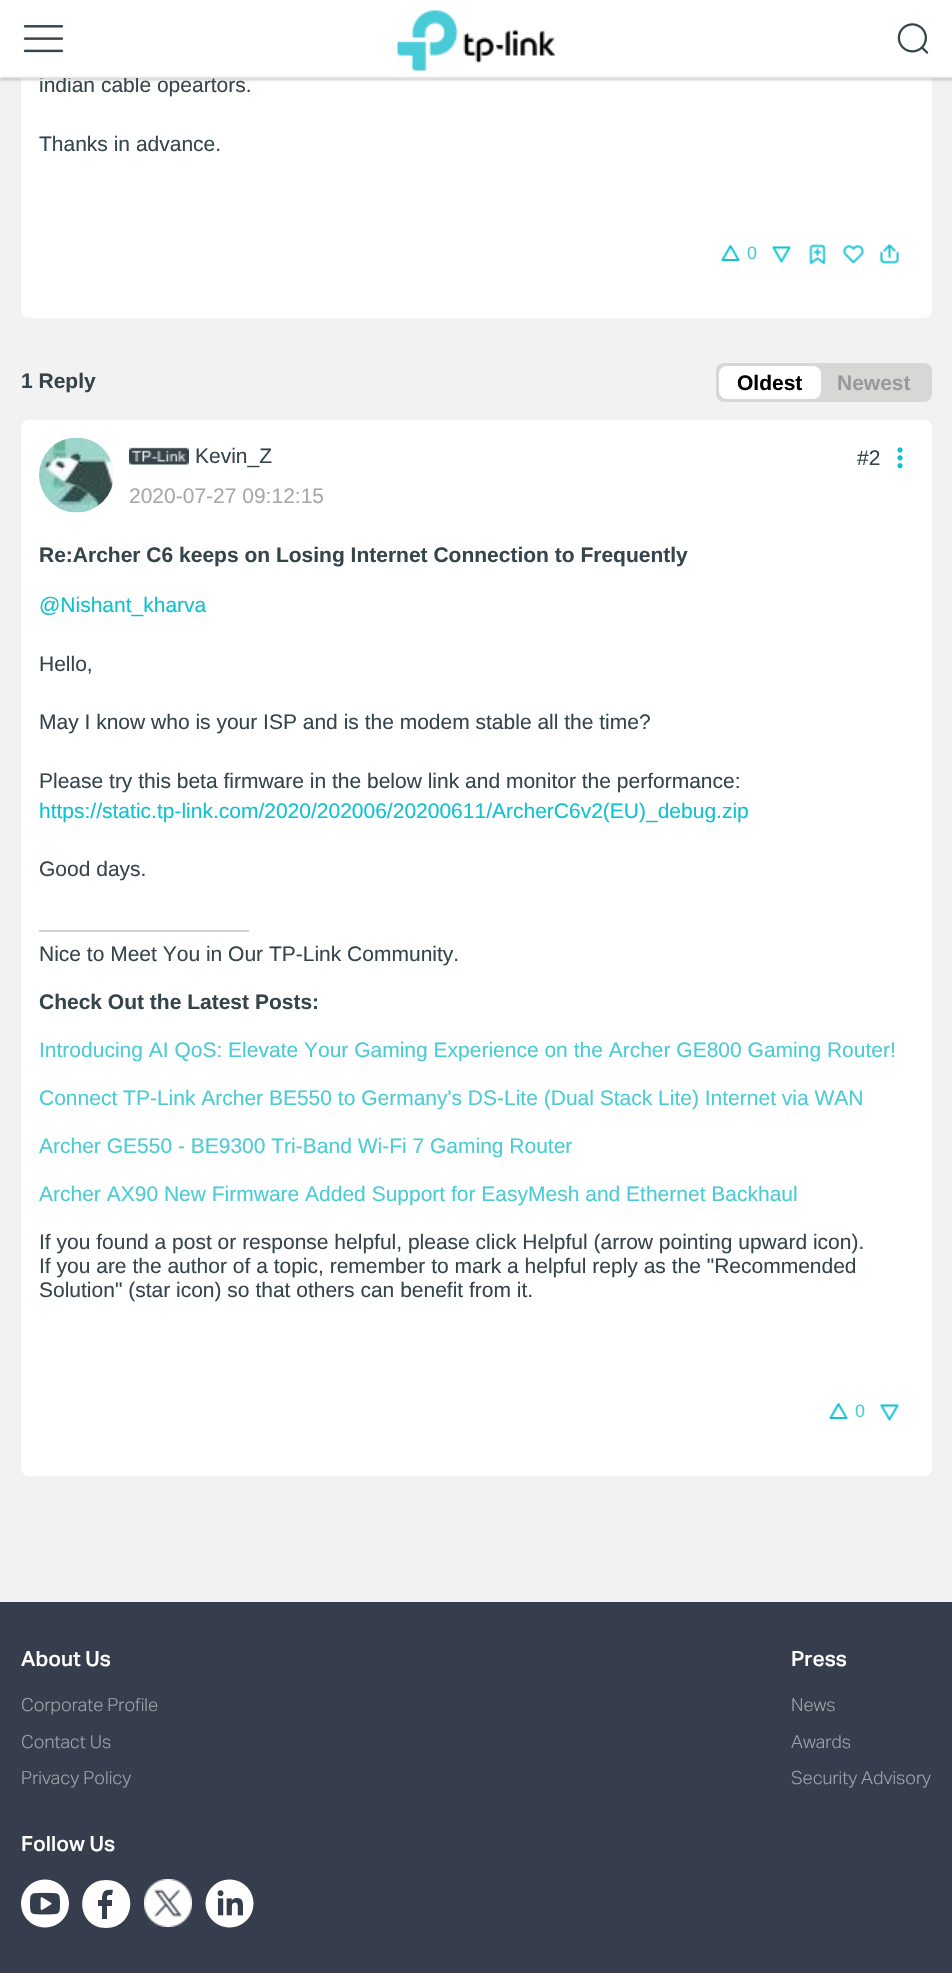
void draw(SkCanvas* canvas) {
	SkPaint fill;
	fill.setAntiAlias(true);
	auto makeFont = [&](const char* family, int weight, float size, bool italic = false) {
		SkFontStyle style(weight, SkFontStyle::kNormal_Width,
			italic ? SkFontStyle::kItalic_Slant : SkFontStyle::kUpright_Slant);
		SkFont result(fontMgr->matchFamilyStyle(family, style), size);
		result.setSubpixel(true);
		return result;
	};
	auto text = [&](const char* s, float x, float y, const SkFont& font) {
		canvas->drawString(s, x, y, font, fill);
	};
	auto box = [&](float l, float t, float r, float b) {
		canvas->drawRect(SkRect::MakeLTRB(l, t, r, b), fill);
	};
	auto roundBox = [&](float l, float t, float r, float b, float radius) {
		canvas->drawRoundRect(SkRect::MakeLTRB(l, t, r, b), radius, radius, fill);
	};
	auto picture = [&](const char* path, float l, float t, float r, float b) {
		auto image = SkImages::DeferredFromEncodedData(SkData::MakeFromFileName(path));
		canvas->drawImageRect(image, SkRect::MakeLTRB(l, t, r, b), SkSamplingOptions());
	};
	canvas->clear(0xFFF2F2F2);
	fill.setColor(0xFFFFFFFF);
	roundBox(21, -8, 932, 318, 8);
	picture("image3.png", 721, 245, 740, 261);
	picture("image4.png", 772, 246, 791, 263);
	picture("image5.png", 809, 244, 826, 265);
	picture("image6.png", 842, 244, 865, 264);
	picture("image7.png", 879, 243, 900, 264);
	fill.setColor(0xFFD6D8D6);
	roundBox(716, 363, 932, 402, 8);
	fill.setColor(0xFFFFFFFF);
	roundBox(719, 366, 821, 399, 8);
	roundBox(21, 420, 932, 1476, 8);
	picture("image8.png", 39, 437, 114, 513);
	picture("image9.png", 129, 447, 189, 465);
	picture("image10.png", 897, 447, 903, 469);
	fill.setColor(0xFFD3D4D5);
	box(39, 930, 249, 932);
	picture("image3.png", 829, 1403, 848, 1419);
	picture("image4.png", 880, 1404, 899, 1421);
	fill.setColor(0xFF363E4D);
	box(0, 1602, 952, 1973);
	picture("image11.png", 21, 1879, 69, 1928);
	fill.setColor(0xFFFFFFFF);
	canvas->drawPath(SkPathBuilder().moveTo(106, 1880).cubicTo(74, 1880, 75, 1928, 106, 1928).cubicTo(138, 1928, 139, 1880, 106, 1880).close().moveTo(112, 1895).cubicTo(107, 1895, 107, 1895, 107, 1900).lineTo(112, 1900).lineTo(112, 1906).lineTo(107, 1906).lineTo(107, 1919).lineTo(102, 1919).lineTo(102, 1906).lineTo(98, 1906).lineTo(98, 1900).lineTo(102, 1900).cubicTo(102, 1892, 104, 1889, 113, 1890).close().detach(), fill);
	picture("image12.png", 144, 1879, 192, 1927);
	picture("image13.png", 205, 1879, 254, 1928);
	auto font1 = makeFont("Liberation Sans", 400, 21);
	fill.setColor(0xFF36444B);
	text("indian cable opeartors.", 39, 92, font1);
	fill.setColor(0xFFFFFFFF);
	box(0, 0, 952, 78);
	fill.setColor(0x4D212121);
	fill.setMaskFilter(SkMaskFilter::MakeBlur(kNormal_SkBlurStyle, 1.5f));
	canvas->drawRect(SkRect::MakeLTRB(0, 78, 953, 80), fill);
	fill.setMaskFilter(nullptr);
	picture("image2.png", 897, 23, 929, 54);
	picture("image0.png", 23, 25, 64, 53);
	picture("image1.png", 397, 10, 555, 71);
	fill.setColor(0xFF36444B);
	text("Thanks in advance.", 39, 151, font1);
	auto font2 = makeFont("Liberation Sans", 400, 18);
	fill.setColor(0xFF4ACBD6);
	text("0", 747, 259, font2);
	auto font3 = makeFont("Liberation Sans", 700, 21);
	fill.setColor(0xFF36444B);
	text("1 Reply", 21, 388, font3);
	fill.setColor(0xFF000000);
	text("Oldest", 737, 390, font3);
	fill.setColor(0xFF989B9D);
	text("Newest", 837, 390, font3);
	fill.setColor(0xFF36444B);
	text("Kevin_Z", 195, 463, font1);
	fill.setColor(0xFFA7A9AC);
	text("2020-07-27 09:12:15", 129, 503, font1);
	fill.setColor(0xFF36444B);
	text("#2", 857, 465, font1);
	text("Re:Archer C6 keeps on Losing Internet Connection to Frequently", 39, 562, font3);
	fill.setColor(0xFF10C1D0);
	text("@Nishant_kharva", 39, 612, font1);
	fill.setColor(0xFF36444B);
	text("Hello,", 39, 671, font1);
	text("May I know who is your ISP and is the modem stable all the time?", 39, 729, font1);
	text("Please try this beta firmware in the below link and monitor the performance:", 39, 788, font1);
	fill.setColor(0xFF10C1D0);
	text("https://static.tp-link.com/2020/202006/20200611/ArcherC6v2(EU)_debug.zip", 39, 818, font1);
	fill.setColor(0xFF36444B);
	text("Good days.", 39, 876, font1);
	text("Nice to Meet You in Our TP-Link Community.", 39, 961, font1);
	text("Check Out the Latest Posts:", 39, 1009, font3);
	fill.setColor(0xFF4ACBD6);
	text("Introducing AI QoS: Elevate Your Gaming Experience on the Archer GE800 Gaming Router!", 39, 1057, font1);
	text("Connect TP-Link Archer BE550 to Germany's DS-Lite (Dual Stack Lite) Internet via WAN", 39, 1105, font1);
	text("Archer GE550 - BE9300 Tri-Band Wi-Fi 7 Gaming Router", 39, 1153, font1);
	text("Archer AX90 New Firmware Added Support for EasyMesh and Ethernet Backhaul", 39, 1201, font1);
	fill.setColor(0xFF36444B);
	text("If you found a post or response helpful, please click Helpful (arrow pointing upward icon).", 39, 1249, font1);
	text("If you are the author of a topic, remember to mark a helpful reply as the \"Recommended", 39, 1273, font1);
	text("Solution\" (star icon) so that others can benefit from it.", 39, 1297, font1);
	fill.setColor(0xFF4ACBD6);
	text("0", 855, 1417, font2);
	auto font4 = makeFont("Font", 500, 21);
	fill.setColor(0xFFFFFFFF);
	text("About Us", 21, 1666, font4);
	auto font5 = makeFont("Font", 300, 18);
	fill.setColor(0xFFA0A2A8);
	text("Corporate Profile", 21, 1711, font5);
	text("Contact Us", 21, 1748, font5);
	text("Privacy Policy", 21, 1784, font5);
	fill.setColor(0xFFFFFFFF);
	text("Press", 791, 1666, font4);
	fill.setColor(0xFFA0A2A8);
	text("News", 791, 1711, font5);
	text("Awards", 791, 1748, font5);
	text("Security Advisory", 791, 1784, font5);
	fill.setColor(0xFFFFFFFF);
	text("Follow Us", 21, 1851, font4);
}
